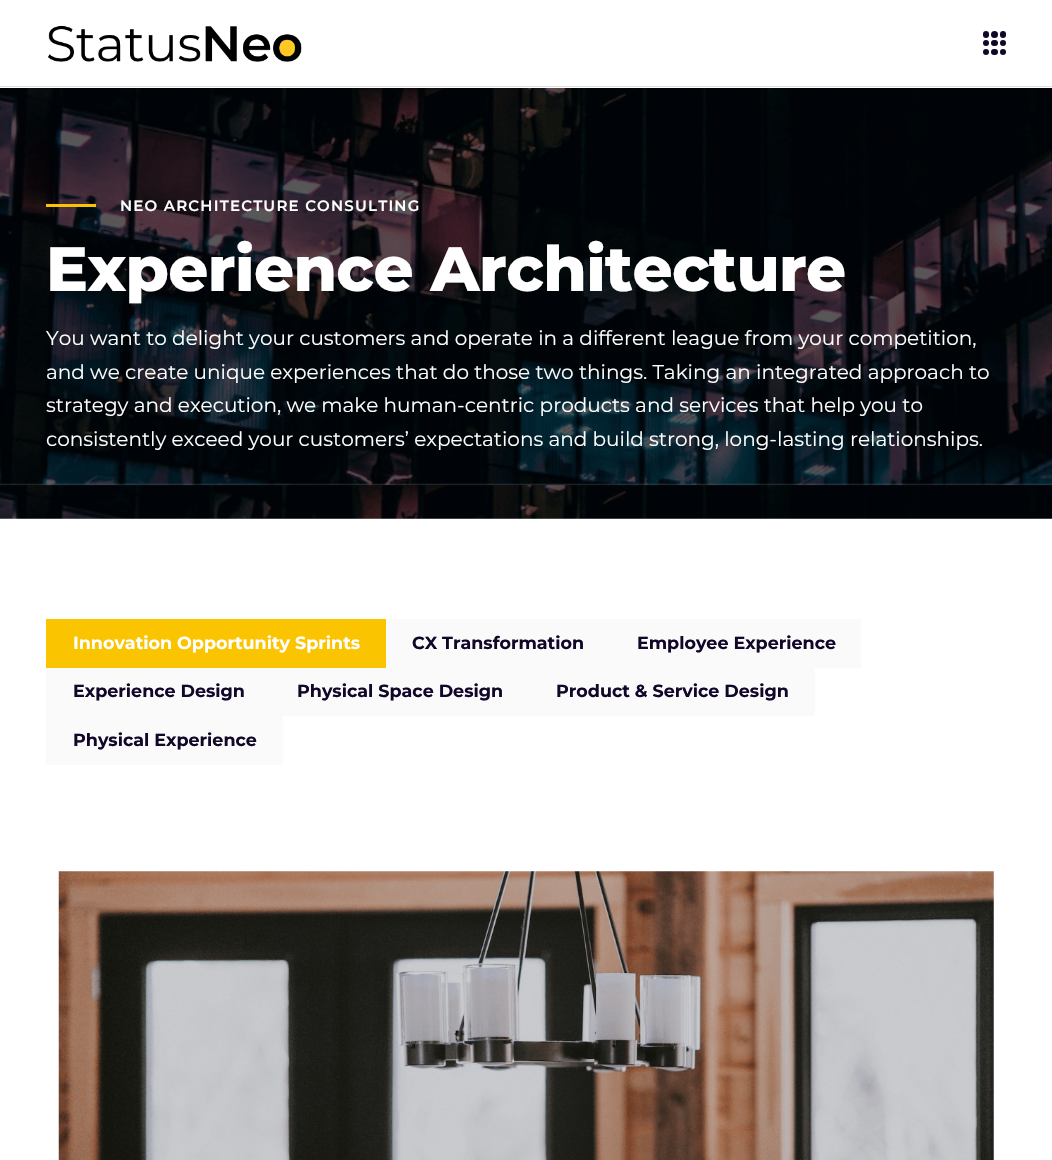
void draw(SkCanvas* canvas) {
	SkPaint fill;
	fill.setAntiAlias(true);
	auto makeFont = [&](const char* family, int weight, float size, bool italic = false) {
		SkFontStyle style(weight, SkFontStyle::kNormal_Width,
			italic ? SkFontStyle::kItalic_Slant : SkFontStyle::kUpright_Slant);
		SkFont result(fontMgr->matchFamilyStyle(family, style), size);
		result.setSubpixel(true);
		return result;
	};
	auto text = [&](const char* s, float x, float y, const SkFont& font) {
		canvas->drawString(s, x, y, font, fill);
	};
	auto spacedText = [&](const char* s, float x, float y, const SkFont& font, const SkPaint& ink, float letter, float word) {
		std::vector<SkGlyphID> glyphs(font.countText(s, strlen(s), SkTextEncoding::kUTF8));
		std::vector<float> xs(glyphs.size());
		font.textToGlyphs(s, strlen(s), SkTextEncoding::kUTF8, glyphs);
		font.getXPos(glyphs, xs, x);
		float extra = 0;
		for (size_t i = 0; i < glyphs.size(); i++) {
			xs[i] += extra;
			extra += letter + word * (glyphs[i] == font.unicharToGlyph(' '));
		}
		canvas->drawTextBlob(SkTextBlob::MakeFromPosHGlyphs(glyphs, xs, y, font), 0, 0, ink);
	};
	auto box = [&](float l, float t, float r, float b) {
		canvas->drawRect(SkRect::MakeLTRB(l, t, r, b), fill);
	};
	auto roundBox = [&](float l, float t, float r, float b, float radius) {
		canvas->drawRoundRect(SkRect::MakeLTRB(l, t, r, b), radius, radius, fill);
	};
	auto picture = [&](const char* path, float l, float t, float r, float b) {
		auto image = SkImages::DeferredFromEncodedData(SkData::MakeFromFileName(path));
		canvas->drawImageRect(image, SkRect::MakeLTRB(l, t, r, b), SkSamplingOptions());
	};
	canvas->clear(0xFFFFFFFF);
	fill.setColor(0xFFE1E1E1);
	box(0, 86, 1052, 87);
	picture("image0.png", 48, 25, 302, 62);
	fill.setColor(0xFF110729);
	roundBox(983, 31, 989, 38, 3);
	canvas->drawCircle(994.5f, 34.5f, 3.5f, fill);
	roundBox(1000, 31, 1006, 38, 3);
	canvas->drawCircle(986, 43, 3, fill);
	roundBox(991, 40, 998, 46, 3);
	canvas->drawCircle(1003, 43, 3, fill);
	canvas->drawCircle(986, 52, 3, fill);
	roundBox(991, 49, 998, 55, 3);
	canvas->drawCircle(1003, 52, 3, fill);
	picture("image1.png", 0, 88, 1052, 519);
	fill.setColor(0xFFFAC400);
	box(46, 204, 96, 207);
	box(46, 619, 386, 668);
	fill.setColor(0xFFFAFAFA);
	box(386, 619, 861, 668);
	box(46, 668, 815, 716);
	box(46, 716, 283, 765);
	picture("image2.png", 58, 871, 994, 1160);
	auto font1 = makeFont("Montserrat", 600, 15);
	fill.setColor(0xFFFFFFFF);
	spacedText("NEO ARCHITECTURE CONSULTING", 120, 211, font1, fill, 1.2f, 0);
	auto font2 = makeFont("Montserrat", 800, 62.5f);
	spacedText("Experience Architecture", 46, 291, font2, fill, -0.6f, 0);
	auto font3 = makeFont("Montserrat", 400, 20);
	text("You want to delight your customers and operate in a different league from your competition,", 46, 345, font3);
	text("and we create unique experiences that do those two things. Taking an integrated approach to", 46, 379, font3);
	text("strategy and execution, we make human-centric products and services that help you to", 46, 412, font3);
	text("consistently exceed your customers’ expectations and build strong, long-lasting relationships.", 46, 446, font3);
	auto font4 = makeFont("Montserrat", 700, 17.5f);
	text("Innovation Opportunity Sprints", 73, 649, font4);
	fill.setColor(0xFF110729);
	text("CX Transformation", 412, 649, font4);
	text("Employee Experience", 637, 649, font4);
	text("Experience Design", 73, 697, font4);
	text("Physical Space Design", 297, 697, font4);
	text("Product & Service Design", 556, 697, font4);
	text("Physical Experience", 73, 746, font4);
}
